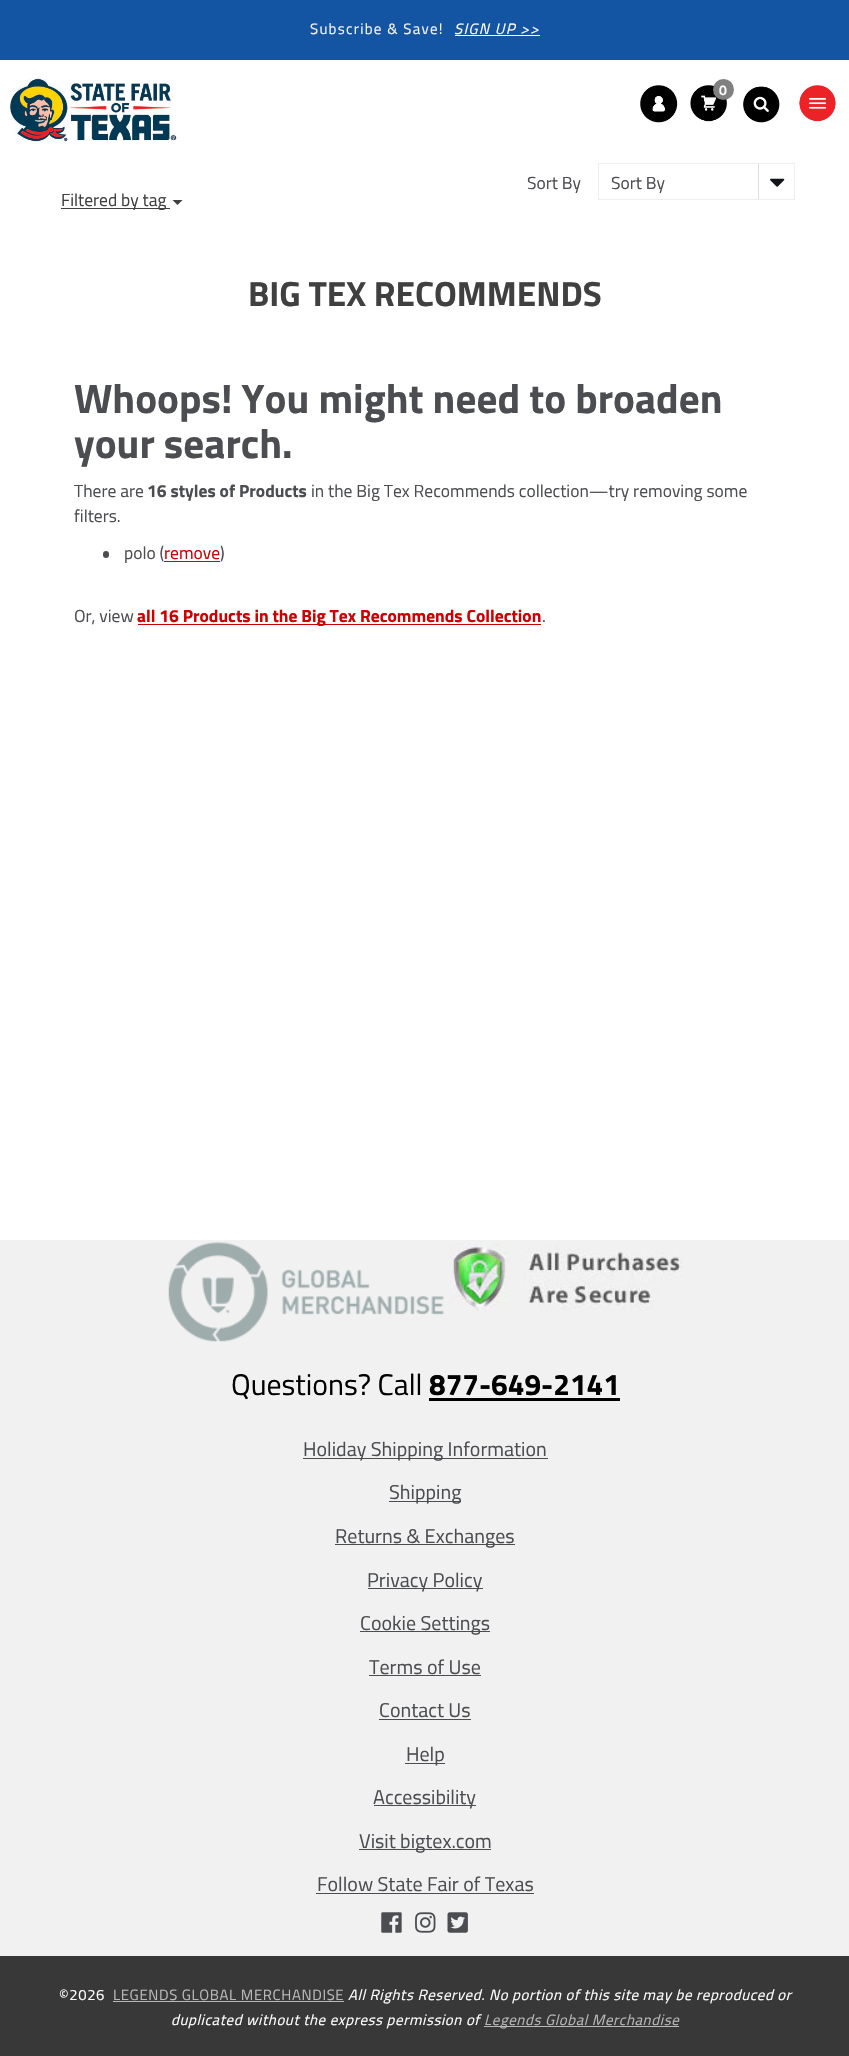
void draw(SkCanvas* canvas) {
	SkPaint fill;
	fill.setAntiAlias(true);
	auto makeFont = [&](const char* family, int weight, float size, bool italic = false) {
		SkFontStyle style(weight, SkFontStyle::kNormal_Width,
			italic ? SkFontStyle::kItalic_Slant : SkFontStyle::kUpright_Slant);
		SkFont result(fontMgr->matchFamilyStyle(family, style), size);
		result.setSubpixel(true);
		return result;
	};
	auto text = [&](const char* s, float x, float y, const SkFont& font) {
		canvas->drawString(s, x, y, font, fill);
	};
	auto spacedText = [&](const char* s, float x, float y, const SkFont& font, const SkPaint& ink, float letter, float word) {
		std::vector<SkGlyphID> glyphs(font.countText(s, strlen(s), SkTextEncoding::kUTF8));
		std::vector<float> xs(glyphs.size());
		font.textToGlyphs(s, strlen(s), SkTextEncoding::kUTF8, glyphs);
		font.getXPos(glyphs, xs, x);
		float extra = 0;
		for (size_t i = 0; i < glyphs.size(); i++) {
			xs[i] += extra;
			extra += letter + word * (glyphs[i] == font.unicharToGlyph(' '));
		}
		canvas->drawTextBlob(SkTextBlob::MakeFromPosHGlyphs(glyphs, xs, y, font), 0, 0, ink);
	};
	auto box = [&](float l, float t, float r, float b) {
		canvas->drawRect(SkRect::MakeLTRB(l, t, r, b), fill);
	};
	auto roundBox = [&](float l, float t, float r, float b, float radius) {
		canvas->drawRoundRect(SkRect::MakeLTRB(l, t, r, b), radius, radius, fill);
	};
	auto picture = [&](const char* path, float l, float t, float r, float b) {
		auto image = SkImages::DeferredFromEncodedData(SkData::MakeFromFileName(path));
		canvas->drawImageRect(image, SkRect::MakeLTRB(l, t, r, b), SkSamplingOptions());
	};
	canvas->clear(0xFFFFFFFF);
	fill.setColor(0xFF1355A3);
	box(0, 0, 849, 60);
	fill.setColor(0xFFFFFFFF);
	box(455, 35, 540, 36);
	picture("image0.png", 10, 78, 177, 142);
	picture("image1.png", 640, 85, 678, 123);
	picture("image2.png", 690, 85, 727, 122);
	fill.setColor(0xFF808080);
	canvas->drawCircle(723.5f, 89.5f, 10.5f, fill);
	picture("image3.png", 743, 86, 780, 123);
	picture("image4.png", 799, 85, 836, 122);
	fill.setColor(0xFFDDDDDD);
	box(758, 163, 759, 200);
	picture("image5.png", 770, 178, 785, 187);
	fill.setStyle(SkPaint::kStroke_Style);
	fill.setStrokeWidth(1);
	fill.setColor(0xFFEEEEEE);
	canvas->drawRect(SkRect::MakeLTRB(598.5f, 163.5f, 794.5f, 199.5f), fill);
	fill.setStyle(SkPaint::kFill_Style);
	fill.setColor(0xFF404040);
	box(61, 208, 170, 209);
	canvas->drawPath(SkPathBuilder().moveTo(172.5f, 200).lineTo(182.5f, 200).lineTo(177.5f, 205).close().detach(), fill);
	fill.setColor(0xFF4C4D51);
	roundBox(103, 551, 109, 558, 3);
	fill.setColor(0xFFCC0000);
	box(164, 561, 220, 562);
	box(138, 624, 541, 625);
	fill.setColor(0xFFF1F1F1);
	box(0, 1240, 849, 1956);
	picture("image6.png", 168, 1242, 444, 1342);
	picture("image7.png", 449, 1243, 683, 1311);
	fill.setColor(0xFF000000);
	box(429, 1398, 620, 1401);
	fill.setColor(0xFF4C4D51);
	box(303, 1458, 548, 1459);
	box(389, 1501, 461, 1502);
	box(335, 1544, 515, 1545);
	box(368, 1588, 483, 1589);
	box(360, 1631, 490, 1632);
	box(369, 1675, 481, 1676);
	box(379, 1719, 471, 1720);
	box(405, 1763, 445, 1764);
	box(374, 1805, 476, 1806);
	box(359, 1849, 491, 1850);
	box(316, 1893, 534, 1894);
	picture("image8.png", 381, 1912, 402, 1933);
	picture("image9.png", 415, 1912, 436, 1933);
	picture("image10.png", 447, 1912, 468, 1933);
	fill.setColor(0xFF383838);
	box(0, 1956, 849, 2056);
	fill.setColor(0xFFB9B9B9);
	box(113, 2001, 344, 2002);
	box(484, 2026, 679, 2027);
	auto font1 = makeFont("Titillium Web", 400, 15);
	fill.setColor(0xFFF5F4F4);
	spacedText("Subscribe & Save!", 310, 34, font1, fill, 1.25f, 0);
	auto font2 = makeFont("Titillium Web", 400, 15, true);
	fill.setColor(0xFFFFFFFF);
	spacedText("SIGN UP >>", 454, 34, font2, fill, 1.25f, 0);
	auto font3 = makeFont("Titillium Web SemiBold", 600, 14);
	spacedText("0", 719, 95, font3, fill, 0.62f, 0);
	auto font4 = makeFont("Titillium Web", 400, 17.5f);
	fill.setColor(0xFF4C4D51);
	text("Sort By", 527, 189, font4);
	text("Sort By", 611, 189, font4);
	fill.setColor(0xFF404040);
	text("Filtered by tag", 61, 206, font4);
	auto font5 = makeFont("Titillium Web", 700, 35);
	text("BIG TEX RECOMMENDS", 248, 306, font5);
	auto font6 = makeFont("Titillium Web", 700, 41.25f);
	fill.setColor(0xFF4C4D51);
	text("Whoops! You might need to broaden", 74, 413, font6);
	text("your search.", 74, 458, font6);
	text("There are", 74, 497, font4);
	auto font7 = makeFont("Titillium Web", 700, 17.5f);
	text("16 styles of Products", 147, 497, font7);
	text("in the Big Tex Recommends collection—try removing some", 311, 497, font4);
	text("filters.", 74, 522, font4);
	text("polo (", 124, 559, font4);
	fill.setColor(0xFFCC0000);
	text("remove", 164, 559, font4);
	fill.setColor(0xFF4C4D51);
	text(")", 220, 559, font4);
	text("Or, view", 74, 622, font4);
	fill.setColor(0xFFCC0000);
	text("all 16 Products in the Big Tex Recommends Collection", 137, 622, font7);
	fill.setColor(0xFF4C4D51);
	text(".", 542, 622, font4);
	auto font8 = makeFont("Titillium Web", 400, 29.75f);
	fill.setColor(0xFF000000);
	text("Questions? Call", 231, 1395, font8);
	auto font9 = makeFont("Titillium Web", 700, 29.75f);
	text("877-649-2141", 429, 1395, font9);
	auto font10 = makeFont("Titillium Web", 400, 20);
	fill.setColor(0xFF4C4D51);
	text("Holiday Shipping Information", 303, 1456, font10);
	text("Shipping", 389, 1499, font10);
	text("Returns & Exchanges", 335, 1543, font10);
	text("Privacy Policy", 367, 1587, font10);
	text("Cookie Settings", 360, 1630, font10);
	text("Terms of Use", 369, 1674, font10);
	text("Contact Us", 379, 1717, font10);
	text("Help", 406, 1761, font10);
	text("Accessibility", 373, 1804, font10);
	text("Visit bigtex.com", 359, 1848, font10);
	text("Follow State Fair of Texas", 317, 1891, font10);
	auto font11 = makeFont("Titillium Web", 400, 14.9f);
	fill.setColor(0xFFFFFFFF);
	spacedText("©2026", 59, 2000, font11, fill, 0.62f, 0);
	fill.setColor(0xFFB9B9B9);
	spacedText("LEGENDS GLOBAL MERCHANDISE", 113, 2000, font11, fill, 0.62f, 0);
	auto font12 = makeFont("Titillium Web", 400, 14.9f, true);
	fill.setColor(0xFFFFFFFF);
	spacedText("All Rights Reserved. No portion of this site may be reproduced or", 348, 2000, font12, fill, 0.62f, 0);
	spacedText("duplicated without the express permission of", 171, 2025, font12, fill, 0.62f, 0);
	fill.setColor(0xFFB9B9B9);
	spacedText("Legends Global Merchandise", 484, 2025, font12, fill, 0.62f, 0);
}
